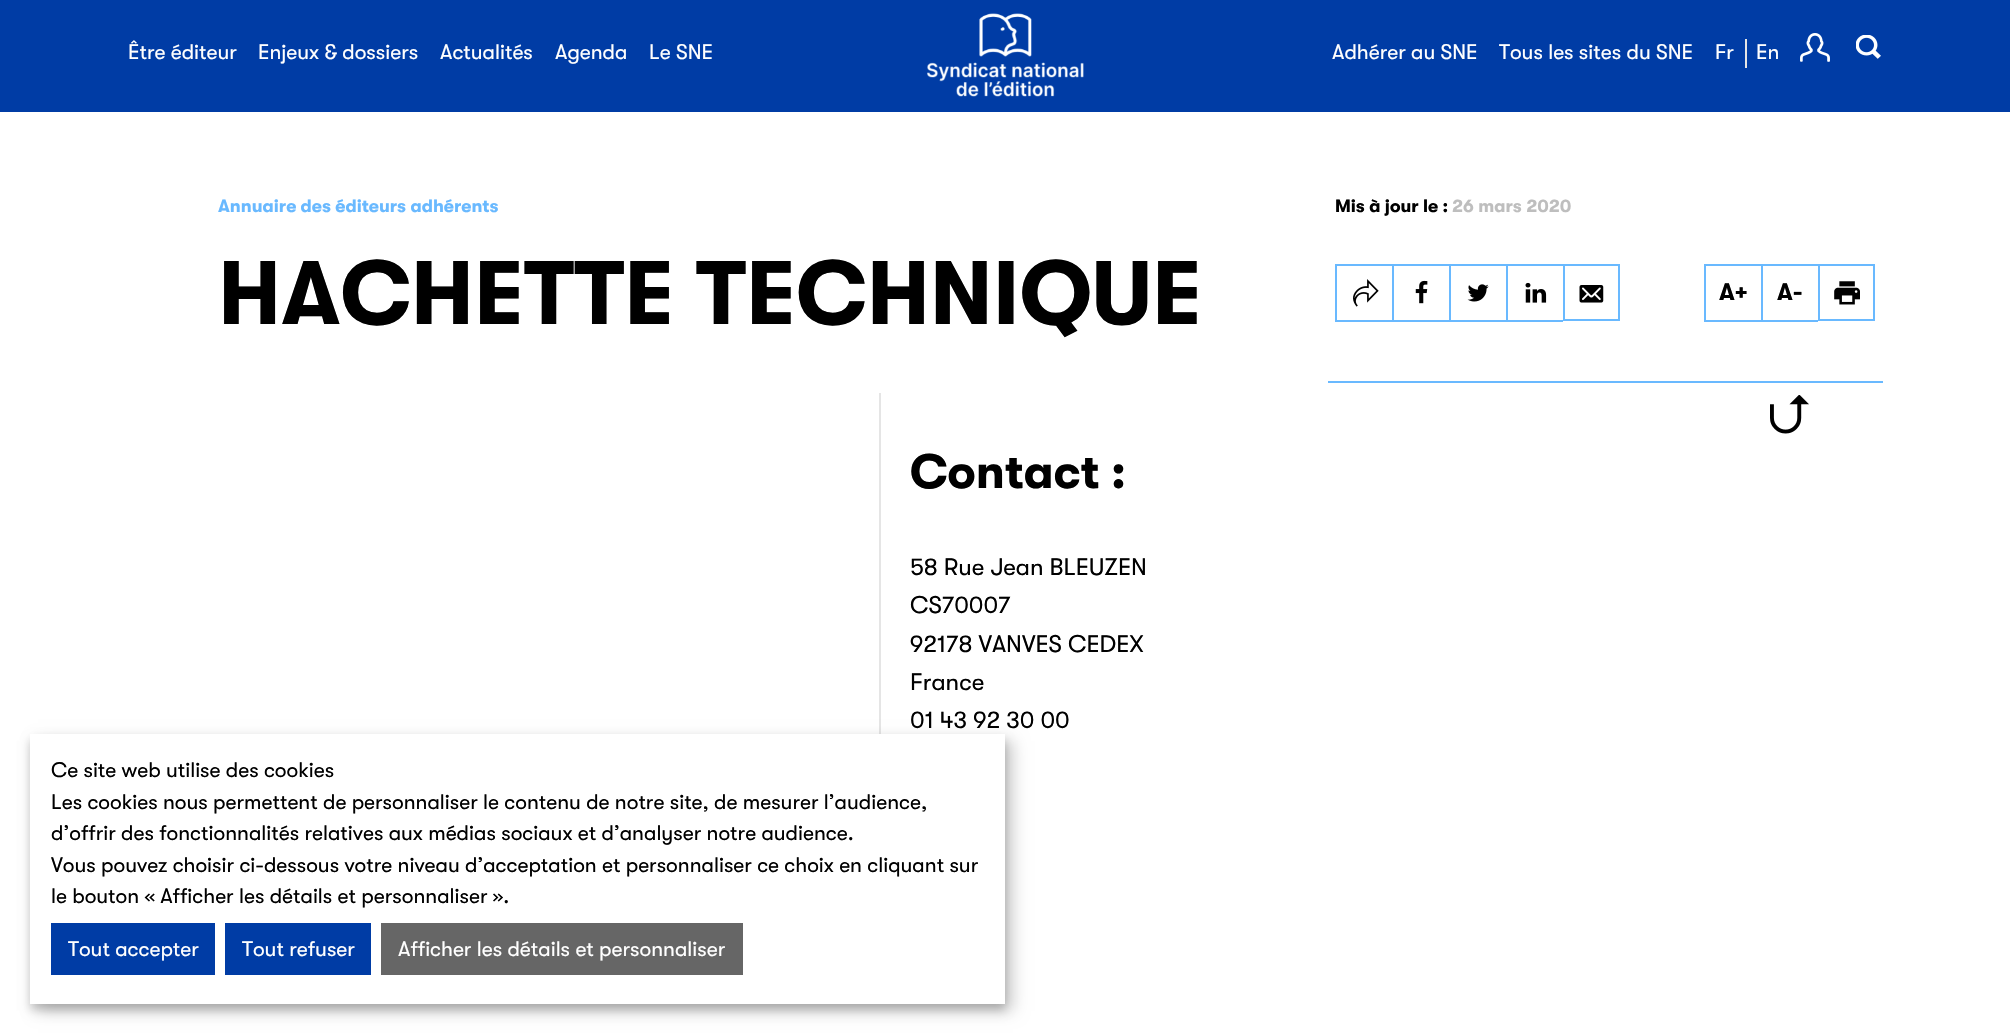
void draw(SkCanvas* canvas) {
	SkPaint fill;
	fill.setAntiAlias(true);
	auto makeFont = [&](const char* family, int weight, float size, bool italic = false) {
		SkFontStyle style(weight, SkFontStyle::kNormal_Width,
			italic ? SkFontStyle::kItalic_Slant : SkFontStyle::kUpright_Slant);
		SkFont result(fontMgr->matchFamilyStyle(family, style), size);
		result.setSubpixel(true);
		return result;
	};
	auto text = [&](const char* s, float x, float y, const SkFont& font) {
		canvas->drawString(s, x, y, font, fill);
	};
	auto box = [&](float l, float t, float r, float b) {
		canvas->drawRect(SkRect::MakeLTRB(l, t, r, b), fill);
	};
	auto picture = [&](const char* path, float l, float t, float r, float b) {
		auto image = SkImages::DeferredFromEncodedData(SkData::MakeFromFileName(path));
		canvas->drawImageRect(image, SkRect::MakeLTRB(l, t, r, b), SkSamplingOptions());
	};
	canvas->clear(0xFFFFFFFF);
	fill.setColor(0xFF003CA5);
	box(0, 0, 2010, 112);
	picture("image0.png", 927, 13, 1084, 97);
	fill.setColor(0xFFE5E5E5);
	box(1745, 39, 1747, 68);
	picture("image1.png", 1800, 33, 1830, 62);
	picture("image2.png", 1856, 35, 1881, 59);
	box(879, 393, 881, 734);
	fill.setColor(0xFF69B9FF);
	box(1328, 381, 1883, 383);
	picture("image3.png", 1353, 279, 1379, 307);
	box(1335, 264, 1563, 266);
	box(1335, 320, 1563, 322);
	box(1335, 264, 1337, 321);
	box(1392, 264, 1394, 321);
	picture("image4.png", 1415, 280, 1428, 304);
	box(1449, 264, 1451, 321);
	picture("image5.png", 1467, 284, 1489, 302);
	box(1506, 264, 1508, 321);
	picture("image6.png", 1525, 282, 1547, 303);
	picture("image7.png", 1579, 285, 1604, 303);
	fill.setStyle(SkPaint::kStroke_Style);
	fill.setStrokeWidth(2);
	canvas->drawRect(SkRect::MakeLTRB(1564, 265, 1619, 320), fill);
	fill.setStyle(SkPaint::kFill_Style);
	box(1704, 264, 1818, 266);
	box(1704, 320, 1818, 322);
	box(1704, 264, 1706, 321);
	box(1761, 264, 1763, 321);
	picture("image8.png", 1834, 281, 1860, 305);
	fill.setStyle(SkPaint::kStroke_Style);
	canvas->drawRect(SkRect::MakeLTRB(1819, 265, 1874, 320), fill);
	picture("image9.png", 1770, 395, 1809, 434);
	fill.setStyle(SkPaint::kFill_Style);
	fill.setColor(0x30000000);
	fill.setMaskFilter(SkMaskFilter::MakeBlur(kNormal_SkBlurStyle, 7.5f));
	canvas->drawRect(SkRect::MakeLTRB(38, 741, 1013, 1011), fill);
	fill.setMaskFilter(nullptr);
	fill.setColor(0x33000000);
	fill.setMaskFilter(SkMaskFilter::MakeBlur(kNormal_SkBlurStyle, 4.5f));
	canvas->drawRect(SkRect::MakeLTRB(30, 740, 1005, 1010), fill);
	fill.setMaskFilter(nullptr);
	fill.setColor(0xFFFFFFFF);
	box(30, 734, 1005, 1004);
	fill.setColor(0xFF003CA5);
	box(51, 923, 215, 975);
	box(225, 923, 371, 975);
	fill.setColor(0xFF666666);
	box(381, 923, 743, 975);
	auto font1 = makeFont("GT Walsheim", 400, 21);
	fill.setColor(0xFFFFFFFF);
	text("Être éditeur", 128, 59, font1);
	text("Enjeux & dossiers", 258, 59, font1);
	text("Actualités", 440, 59, font1);
	text("Agenda", 555, 59, font1);
	text("Le SNE", 649, 59, font1);
	text("Adhérer au SNE", 1332, 59, font1);
	text("Tous les sites du SNE", 1499, 59, font1);
	text("Fr", 1715, 59, font1);
	text("En", 1756, 59, font1);
	auto font2 = makeFont("GT Walsheim", 700, 18);
	fill.setColor(0xFF69B9FF);
	text("Annuaire des éditeurs adhérents", 218, 212, font2);
	auto font3 = makeFont("GT Walsheim", 700, 90);
	fill.setColor(0xFF000000);
	text("HACHETTE TECHNIQUE", 218, 324, font3);
	auto font4 = makeFont("GT Walsheim", 700, 48);
	text("Contact :", 910, 488, font4);
	auto font5 = makeFont("GT Walsheim", 400, 24);
	text("58 Rue Jean BLEUZEN", 910, 575, font5);
	text("CS70007", 910, 613, font5);
	text("92178 VANVES CEDEX", 910, 652, font5);
	text("France", 910, 690, font5);
	text("01 43 92 30 00", 910, 728, font5);
	text("Mis à jour le :", 1335, 212, font2);
	fill.setColor(0xFFBEBEBE);
	text("26 mars 2020", 1452, 212, font2);
	auto font6 = makeFont("GT Walsheim", 700, 24);
	fill.setColor(0xFF000000);
	text("A+", 1719, 300, font6);
	text("A-", 1777, 300, font6);
	text("Ce site web utilise des cookies", 51, 777, font1);
	text("Les cookies nous permettent de personnaliser le contenu de notre site, de mesurer l’audience,", 51, 809, font1);
	text("d’offrir des fonctionnalités relatives aux médias sociaux et d’analyser notre audience.", 51, 840, font1);
	text("Vous pouvez choisir ci-dessous votre niveau d’acceptation et personnaliser ce choix en cliquant sur", 51, 872, font1);
	text("le bouton « Afficher les détails et personnaliser ».", 51, 903, font1);
	fill.setColor(0xFFFFFFFF);
	text("Tout accepter", 68, 956, font1);
	text("Tout refuser", 242, 956, font1);
	text("Afficher les détails et personnaliser", 398, 956, font1);
}
